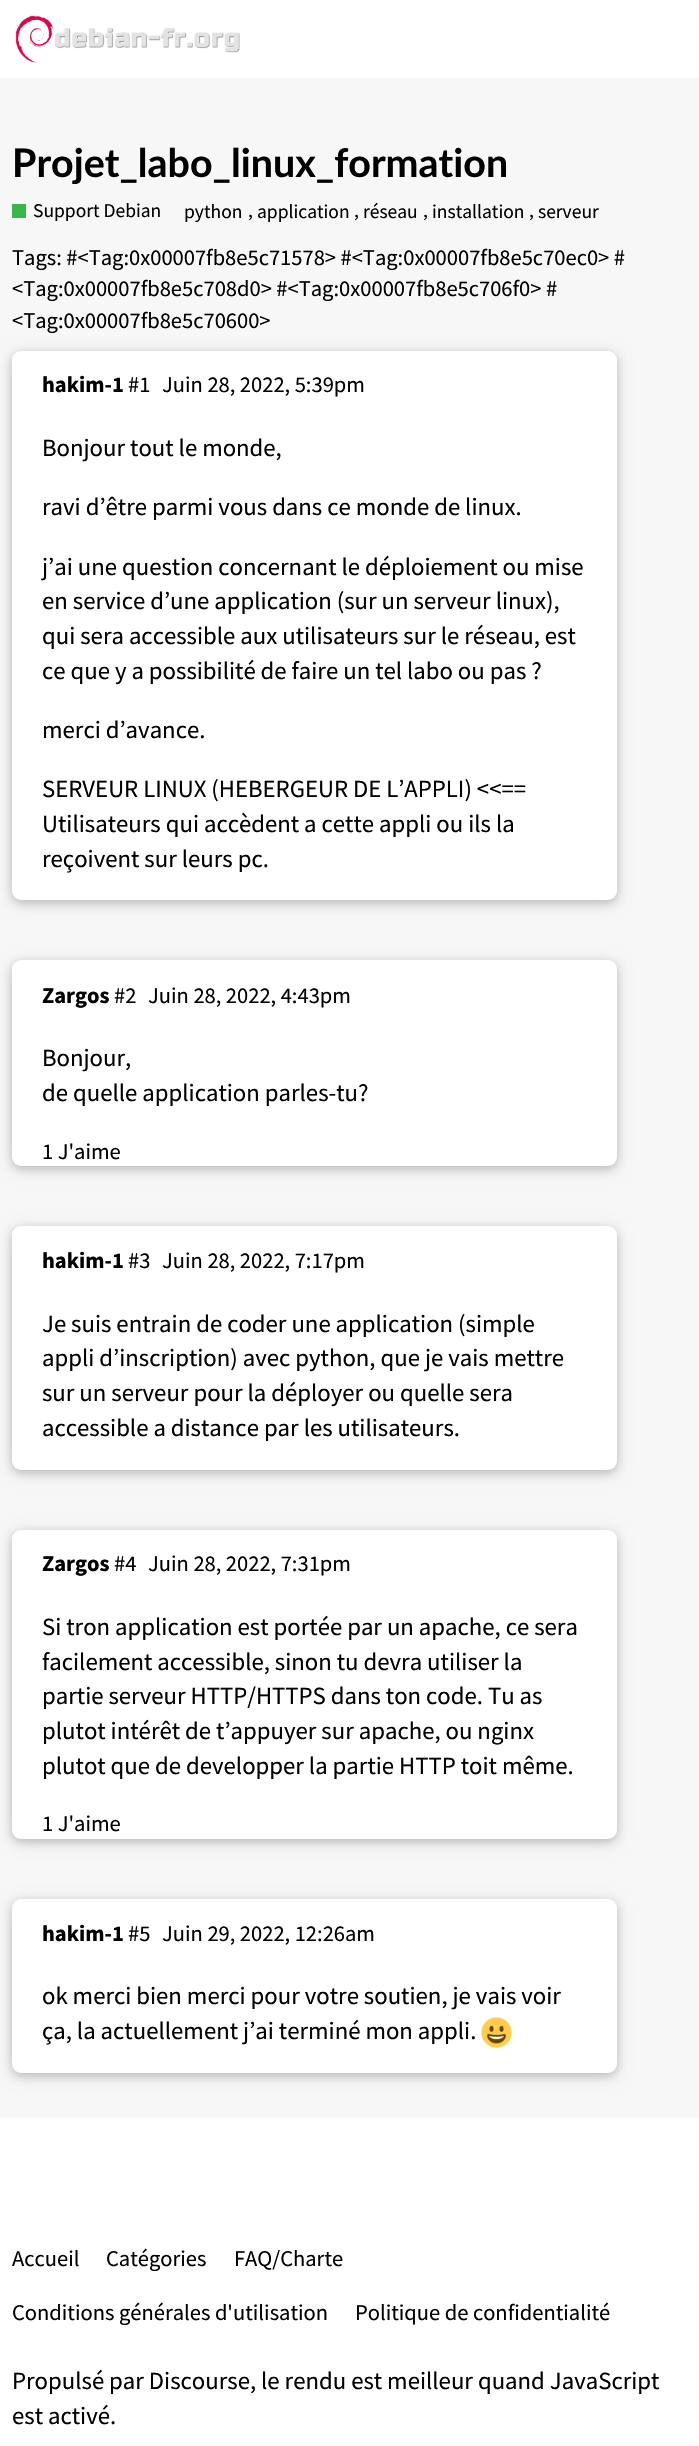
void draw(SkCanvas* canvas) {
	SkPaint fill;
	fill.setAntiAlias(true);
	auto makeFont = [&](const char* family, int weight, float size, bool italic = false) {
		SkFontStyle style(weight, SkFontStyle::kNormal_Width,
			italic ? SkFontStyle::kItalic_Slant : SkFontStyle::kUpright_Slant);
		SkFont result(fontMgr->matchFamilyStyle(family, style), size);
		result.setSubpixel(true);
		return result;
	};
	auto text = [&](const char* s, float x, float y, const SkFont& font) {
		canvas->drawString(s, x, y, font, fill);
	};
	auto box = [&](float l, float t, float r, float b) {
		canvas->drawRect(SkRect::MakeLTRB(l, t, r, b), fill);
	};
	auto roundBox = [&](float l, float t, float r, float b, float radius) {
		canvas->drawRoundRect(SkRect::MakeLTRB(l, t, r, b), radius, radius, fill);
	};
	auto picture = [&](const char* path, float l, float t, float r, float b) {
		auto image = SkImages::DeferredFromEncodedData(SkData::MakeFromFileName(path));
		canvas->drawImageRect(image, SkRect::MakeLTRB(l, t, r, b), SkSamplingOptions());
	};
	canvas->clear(0xFFFFFFFF);
	picture("image0.png", 15, 15, 240, 63);
	fill.setColor(0xFFF7F7F7);
	box(0, 78, 699, 2118);
	fill.setColor(0xFF3AB54A);
	box(12, 204, 26, 218);
	fill.setColor(0x1F000000);
	fill.setMaskFilter(SkMaskFilter::MakeBlur(kNormal_SkBlurStyle, 7.5f));
	canvas->drawRoundRect(SkRect::MakeLTRB(12, 354, 617, 903), 9, 9, fill);
	fill.setMaskFilter(nullptr);
	fill.setColor(0x29000000);
	fill.setMaskFilter(SkMaskFilter::MakeBlur(kNormal_SkBlurStyle, 4));
	canvas->drawRoundRect(SkRect::MakeLTRB(12, 354, 617, 903), 9, 9, fill);
	fill.setMaskFilter(nullptr);
	fill.setColor(0xFFFFFFFF);
	roundBox(12, 351, 617, 900, 9);
	fill.setColor(0x1F000000);
	fill.setMaskFilter(SkMaskFilter::MakeBlur(kNormal_SkBlurStyle, 7.5f));
	canvas->drawRoundRect(SkRect::MakeLTRB(12, 963, 617, 1169), 9, 9, fill);
	fill.setMaskFilter(nullptr);
	fill.setColor(0x29000000);
	fill.setMaskFilter(SkMaskFilter::MakeBlur(kNormal_SkBlurStyle, 4));
	canvas->drawRoundRect(SkRect::MakeLTRB(12, 963, 617, 1169), 9, 9, fill);
	fill.setMaskFilter(nullptr);
	fill.setColor(0xFFFFFFFF);
	roundBox(12, 960, 617, 1166, 9);
	fill.setColor(0x1F000000);
	fill.setMaskFilter(SkMaskFilter::MakeBlur(kNormal_SkBlurStyle, 7.5f));
	canvas->drawRoundRect(SkRect::MakeLTRB(12, 1229, 617, 1473), 9, 9, fill);
	fill.setMaskFilter(nullptr);
	fill.setColor(0x29000000);
	fill.setMaskFilter(SkMaskFilter::MakeBlur(kNormal_SkBlurStyle, 4));
	canvas->drawRoundRect(SkRect::MakeLTRB(12, 1229, 617, 1473), 9, 9, fill);
	fill.setMaskFilter(nullptr);
	fill.setColor(0xFFFFFFFF);
	roundBox(12, 1226, 617, 1470, 9);
	fill.setColor(0x1F000000);
	fill.setMaskFilter(SkMaskFilter::MakeBlur(kNormal_SkBlurStyle, 7.5f));
	canvas->drawRoundRect(SkRect::MakeLTRB(12, 1533, 617, 1842), 9, 9, fill);
	fill.setMaskFilter(nullptr);
	fill.setColor(0x29000000);
	fill.setMaskFilter(SkMaskFilter::MakeBlur(kNormal_SkBlurStyle, 4));
	canvas->drawRoundRect(SkRect::MakeLTRB(12, 1533, 617, 1842), 9, 9, fill);
	fill.setMaskFilter(nullptr);
	fill.setColor(0xFFFFFFFF);
	roundBox(12, 1530, 617, 1839, 9);
	fill.setColor(0x1F000000);
	fill.setMaskFilter(SkMaskFilter::MakeBlur(kNormal_SkBlurStyle, 7.5f));
	canvas->drawRoundRect(SkRect::MakeLTRB(12, 1902, 617, 2076), 9, 9, fill);
	fill.setMaskFilter(nullptr);
	fill.setColor(0x29000000);
	fill.setMaskFilter(SkMaskFilter::MakeBlur(kNormal_SkBlurStyle, 4));
	canvas->drawRoundRect(SkRect::MakeLTRB(12, 1902, 617, 2076), 9, 9, fill);
	fill.setMaskFilter(nullptr);
	fill.setColor(0xFFFFFFFF);
	roundBox(12, 1899, 617, 2073, 9);
	picture("image1.png", 481, 2017, 512, 2048);
	auto font1 = makeFont("Lato", 700, 39.4f);
	fill.setColor(0xFF000000);
	text("Projet_labo_linux_formation", 12, 177, font1);
	auto font2 = makeFont("Source Sans Pro", 400, 19.5f);
	text("Support Debian", 33, 217, font2);
	text("python", 184, 218, font2);
	text(",", 248, 217, font2);
	text("application", 257, 218, font2);
	text(",", 354, 217, font2);
	text("réseau", 363, 218, font2);
	text(",", 423, 217, font2);
	text("installation", 432, 218, font2);
	text(",", 529, 217, font2);
	text("serveur", 538, 218, font2);
	auto font3 = makeFont("Source Sans Pro", 400, 22.5f);
	text("Tags: #<Tag:0x00007fb8e5c71578> #<Tag:0x00007fb8e5c70ec0> #", 12, 265, font3);
	text("<Tag:0x00007fb8e5c708d0> #<Tag:0x00007fb8e5c706f0> #", 12, 296, font3);
	text("<Tag:0x00007fb8e5c70600>", 12, 328, font3);
	auto font4 = makeFont("Source Sans Pro", 700, 22.5f);
	text("hakim-1", 42, 392, font4);
	text("#1", 128, 392, font3);
	text("Juin 28, 2022, 5:39pm", 162, 392, font3);
	auto font5 = makeFont("Source Sans Pro", 400, 24.75f);
	text("Bonjour tout le monde,", 42, 456, font5);
	text("ravi d’être parmi vous dans ce monde de linux.", 42, 515, font5);
	text("j’ai une question concernant le déploiement ou mise", 42, 575, font5);
	text("en service d’une application (sur un serveur linux),", 42, 609, font5);
	text("qui sera accessible aux utilisateurs sur le réseau, est", 42, 644, font5);
	text("ce que y a possibilité de faire un tel labo ou pas ?", 42, 679, font5);
	text("merci d’avance.", 42, 738, font5);
	text("SERVEUR LINUX (HEBERGEUR DE L’APPLI) <<==", 42, 797, font5);
	text("Utilisateurs qui accèdent a cette appli ou ils la", 42, 832, font5);
	text("reçoivent sur leurs pc.", 42, 867, font5);
	text("Zargos", 42, 1003, font4);
	text("#2", 114, 1003, font3);
	text("Juin 28, 2022, 4:43pm", 148, 1003, font3);
	text("Bonjour,", 42, 1066, font5);
	text("de quelle application parles-tu?", 42, 1101, font5);
	text("1 J'aime", 42, 1159, font3);
	text("hakim-1", 42, 1268, font4);
	text("#3", 128, 1268, font3);
	text("Juin 28, 2022, 7:17pm", 162, 1268, font3);
	text("Je suis entrain de coder une application (simple", 42, 1332, font5);
	text("appli d’inscription) avec python, que je vais mettre", 42, 1366, font5);
	text("sur un serveur pour la déployer ou quelle sera", 42, 1401, font5);
	text("accessible a distance par les utilisateurs.", 42, 1436, font5);
	text("Zargos", 42, 1571, font4);
	text("#4", 114, 1571, font3);
	text("Juin 28, 2022, 7:31pm", 148, 1571, font3);
	text("Si tron application est portée par un apache, ce sera", 42, 1635, font5);
	text("facilement accessible, sinon tu devra utiliser la", 42, 1670, font5);
	text("partie serveur HTTP/HTTPS dans ton code. Tu as", 42, 1704, font5);
	text("plutot intérêt de t’appuyer sur apache, ou nginx", 42, 1739, font5);
	text("plutot que de developper la partie HTTP toit même.", 42, 1774, font5);
	text("1 J'aime", 42, 1831, font3);
	text("hakim-1", 42, 1941, font4);
	text("#5", 128, 1941, font3);
	text("Juin 29, 2022, 12:26am", 162, 1941, font3);
	text("ok merci bien merci pour votre soutien, je vais voir", 42, 2004, font5);
	text("ça, la actuellement j’ai terminé mon appli.", 42, 2039, font5);
	text("Accueil", 12, 2266, font3);
	text("Catégories", 106, 2266, font3);
	text("FAQ/Charte", 234, 2266, font3);
	text("Conditions générales d'utilisation", 12, 2320, font3);
	text("Politique de confidentialité", 355, 2320, font3);
	text("Propulsé par Discourse, le rendu est meilleur quand JavaScript", 12, 2389, font5);
	text("est activé.", 12, 2424, font5);
}
